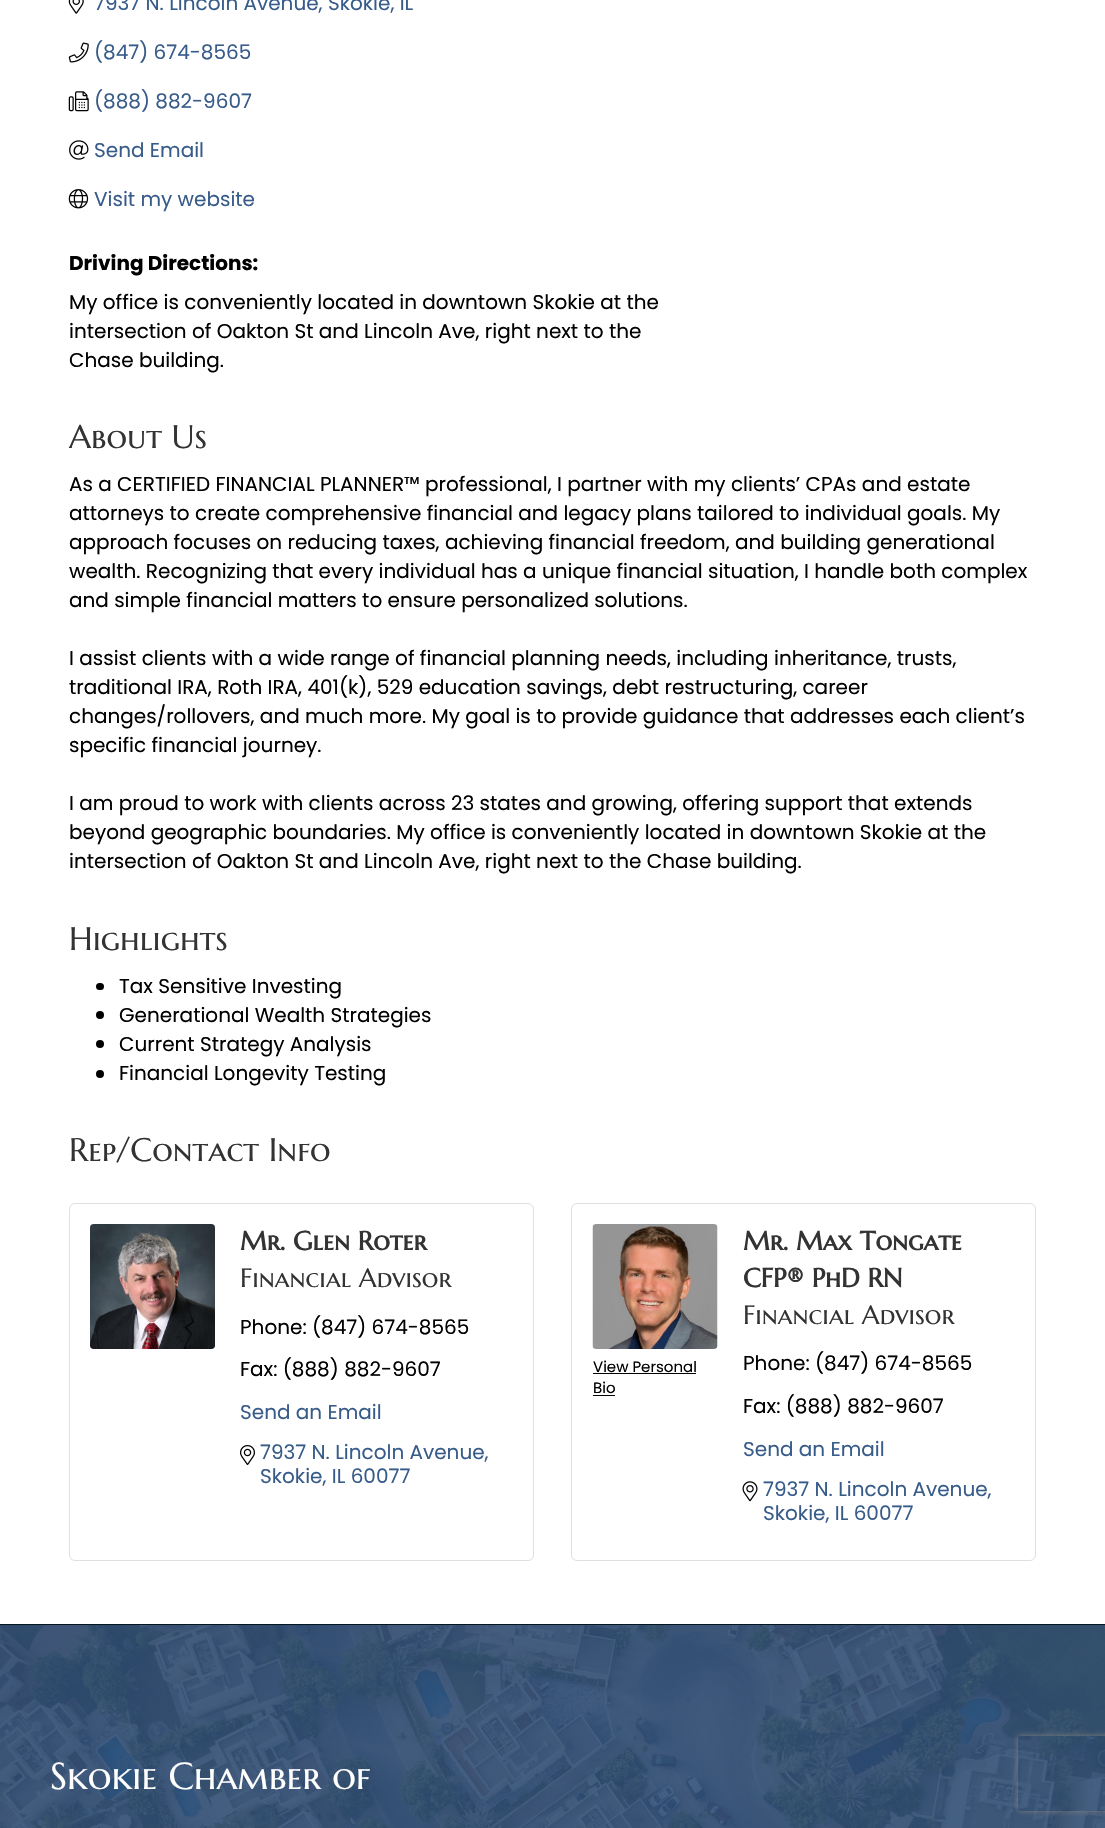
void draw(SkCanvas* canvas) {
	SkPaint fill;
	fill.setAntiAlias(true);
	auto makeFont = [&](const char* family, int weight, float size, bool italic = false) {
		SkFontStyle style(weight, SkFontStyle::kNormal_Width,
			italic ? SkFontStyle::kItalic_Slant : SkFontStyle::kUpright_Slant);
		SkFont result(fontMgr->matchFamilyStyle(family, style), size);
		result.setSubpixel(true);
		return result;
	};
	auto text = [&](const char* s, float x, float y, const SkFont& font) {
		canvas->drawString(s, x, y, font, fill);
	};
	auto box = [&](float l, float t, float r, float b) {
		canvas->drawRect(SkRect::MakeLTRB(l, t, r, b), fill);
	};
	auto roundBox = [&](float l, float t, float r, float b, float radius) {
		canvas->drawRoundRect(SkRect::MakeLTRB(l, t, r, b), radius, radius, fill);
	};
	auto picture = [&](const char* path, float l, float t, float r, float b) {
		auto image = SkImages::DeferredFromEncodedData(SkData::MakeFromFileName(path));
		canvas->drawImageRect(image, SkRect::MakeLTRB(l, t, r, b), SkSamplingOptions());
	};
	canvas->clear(0xFFFFFFFF);
	picture("image0.png", 68, 0, 84, 14);
	picture("image1.png", 68, 42, 89, 63);
	picture("image2.png", 68, 91, 89, 112);
	picture("image3.png", 69, 140, 89, 160);
	picture("image4.png", 68, 189, 89, 209);
	fill.setColor(0xFF000000);
	roundBox(96, 983, 104, 990, 3.5f);
	canvas->drawCircle(100, 1015, 4, fill);
	canvas->drawCircle(100, 1044, 4, fill);
	canvas->drawCircle(100, 1074, 4, fill);
	fill.setStyle(SkPaint::kStroke_Style);
	fill.setStrokeWidth(1);
	fill.setColor(0xFFDFDFDF);
	canvas->drawRoundRect(SkRect::MakeLTRB(69.5f, 1203.5f, 533.5f, 1560.5f), 5.5f, 5.5f, fill);
	picture("image5.png", 90, 1224, 215, 1349);
	picture("image6.png", 240, 1445, 255, 1465);
	canvas->drawRoundRect(SkRect::MakeLTRB(571.5f, 1203.5f, 1035.5f, 1560.5f), 5.5f, 5.5f, fill);
	picture("image7.png", 592, 1224, 718, 1349);
	fill.setStyle(SkPaint::kFill_Style);
	fill.setColor(0xFF000000);
	box(593, 1373, 696, 1374);
	box(593, 1395, 615, 1396);
	picture("image8.png", 742, 1481, 758, 1502);
	picture("image9.png", 0, 1625, 1105, 1828);
	fill.setColor(0xFF051622);
	box(0, 1624, 1105, 1625);
	canvas->save();
	canvas->clipPath(SkPathBuilder(SkPathFillType::kEvenOdd).moveTo(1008, 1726).lineTo(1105, 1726).lineTo(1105, 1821).lineTo(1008, 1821).close().moveTo(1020.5f, 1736).lineTo(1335.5f, 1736).cubicTo(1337, 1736, 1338, 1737, 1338, 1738.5f).lineTo(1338, 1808.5f).cubicTo(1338, 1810, 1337, 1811, 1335.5f, 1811).lineTo(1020.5f, 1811).cubicTo(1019, 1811, 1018, 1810, 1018, 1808.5f).lineTo(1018, 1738.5f).cubicTo(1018, 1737, 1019, 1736, 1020.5f, 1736).close().detach(), true);
	fill.setColor(0xFF808080);
	fill.setMaskFilter(SkMaskFilter::MakeBlur(kNormal_SkBlurStyle, 3));
	canvas->drawRoundRect(SkRect::MakeLTRB(1018, 1736, 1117, 1811), 2.5f, 2.5f, fill);
	fill.setMaskFilter(nullptr);
	canvas->restore();
	auto font1 = makeFont("Poppins", 400, 20);
	fill.setColor(0xFF385C8A);
	text("7937 N. Lincoln Avenue, Skokie, IL", 94, 10, font1);
	text("(847) 674-8565", 94, 59, font1);
	text("(888) 882-9607", 94, 108, font1);
	text("Send Email", 94, 157, font1);
	text("Visit my website", 94, 206, font1);
	auto font2 = makeFont("Poppins", 700, 20);
	fill.setColor(0xFF000000);
	text("Driving Directions:", 69, 270, font2);
	text("My office is conveniently located in downtown Skokie at the", 69, 309, font1);
	text("intersection of Oakton St and Lincoln Ave, right next to the", 69, 338, font1);
	text("Chase building.", 69, 367, font1);
	auto font3 = makeFont("Marcellus SC", 400, 32.5f);
	fill.setColor(0xFF333333);
	text("About Us", 69, 448, font3);
	fill.setColor(0xFF000000);
	text("As a CERTIFIED FINANCIAL PLANNER™ professional, I partner with my clients’ CPAs and estate", 69, 491, font1);
	text("attorneys to create comprehensive financial and legacy plans tailored to individual goals. My", 69, 520, font1);
	text("approach focuses on reducing taxes, achieving financial freedom, and building generational", 69, 549, font1);
	text("wealth. Recognizing that every individual has a unique financial situation, I handle both complex", 69, 578, font1);
	text("and simple financial matters to ensure personalized solutions.", 69, 607, font1);
	text("I assist clients with a wide range of financial planning needs, including inheritance, trusts,", 69, 665, font1);
	text("traditional IRA, Roth IRA, 401(k), 529 education savings, debt restructuring, career", 69, 694, font1);
	text("changes/rollovers, and much more. My goal is to provide guidance that addresses each client’s", 69, 723, font1);
	text("specific financial journey.", 69, 752, font1);
	text("I am proud to work with clients across 23 states and growing, offering support that extends", 69, 810, font1);
	text("beyond geographic boundaries. My office is conveniently located in downtown Skokie at the", 69, 839, font1);
	text("intersection of Oakton St and Lincoln Ave, right next to the Chase building.", 69, 868, font1);
	fill.setColor(0xFF333333);
	text("Highlights", 69, 950, font3);
	fill.setColor(0xFF000000);
	text("Tax Sensitive Investing", 119, 993, font1);
	text("Generational Wealth Strategies", 119, 1022, font1);
	text("Current Strategy Analysis", 119, 1051, font1);
	text("Financial Longevity Testing", 119, 1080, font1);
	fill.setColor(0xFF333333);
	text("Rep/Contact Info", 69, 1161, font3);
	auto font4 = makeFont("Marcellus SC", 700, 26.25f);
	text("Mr. Glen Roter", 240, 1250, font4);
	auto font5 = makeFont("Marcellus SC", 400, 26.25f);
	text("Financial Advisor", 240, 1287, font5);
	fill.setColor(0xFF000000);
	text("Phone: (847) 674-8565", 240, 1334, font1);
	text("Fax: (888) 882-9607", 240, 1376, font1);
	fill.setColor(0xFF385C8A);
	text("Send an Email", 240, 1419, font1);
	text("7937 N. Lincoln Avenue,", 260, 1459, font1);
	text("Skokie, IL 60077", 260, 1483, font1);
	auto font6 = makeFont("Poppins", 400, 15);
	fill.setColor(0xFF000000);
	text("View Personal", 593, 1372, font6);
	text("Bio", 593, 1393, font6);
	fill.setColor(0xFF333333);
	text("Mr. Max Tongate", 743, 1250, font4);
	text("CFP® PhD RN", 743, 1287, font4);
	text("Financial Advisor", 743, 1324, font5);
	fill.setColor(0xFF000000);
	text("Phone: (847) 674-8565", 743, 1370, font1);
	text("Fax: (888) 882-9607", 743, 1413, font1);
	fill.setColor(0xFF385C8A);
	text("Send an Email", 743, 1456, font1);
	text("7937 N. Lincoln Avenue,", 763, 1496, font1);
	text("Skokie, IL 60077", 763, 1520, font1);
	auto font7 = makeFont("Marcellus SC", 400, 37.5f);
	fill.setColor(0xFFFFFFFF);
	text("Skokie Chamber of", 50, 1789, font7);
}
